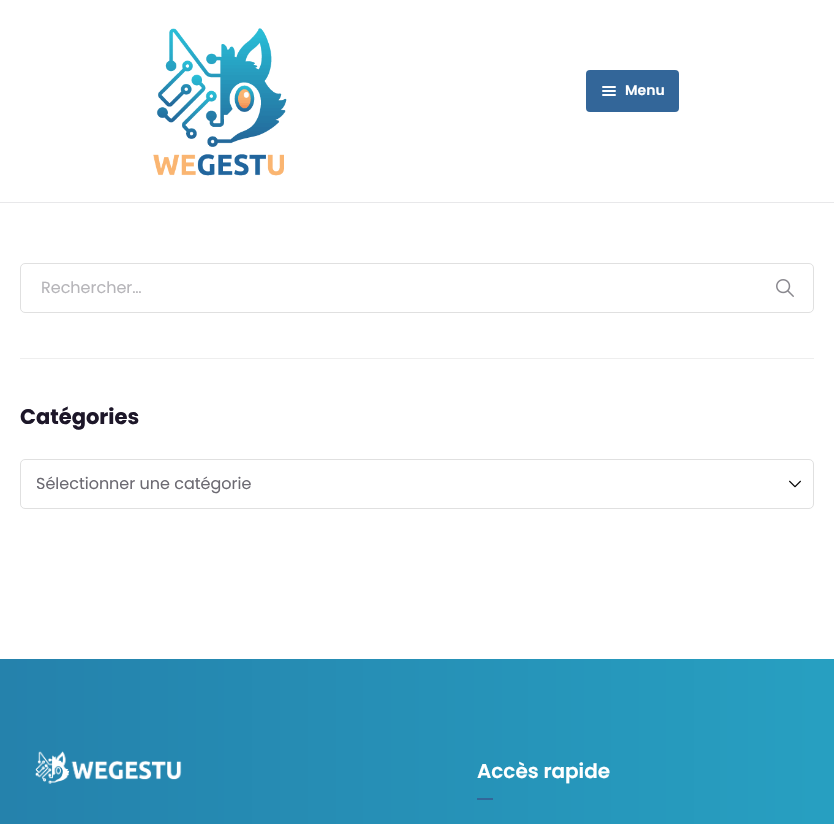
void draw(SkCanvas* canvas) {
	SkPaint fill;
	fill.setAntiAlias(true);
	auto makeFont = [&](const char* family, int weight, float size, bool italic = false) {
		SkFontStyle style(weight, SkFontStyle::kNormal_Width,
			italic ? SkFontStyle::kItalic_Slant : SkFontStyle::kUpright_Slant);
		SkFont result(fontMgr->matchFamilyStyle(family, style), size);
		result.setSubpixel(true);
		return result;
	};
	auto text = [&](const char* s, float x, float y, const SkFont& font) {
		canvas->drawString(s, x, y, font, fill);
	};
	auto box = [&](float l, float t, float r, float b) {
		canvas->drawRect(SkRect::MakeLTRB(l, t, r, b), fill);
	};
	auto roundBox = [&](float l, float t, float r, float b, float radius) {
		canvas->drawRoundRect(SkRect::MakeLTRB(l, t, r, b), radius, radius, fill);
	};
	auto picture = [&](const char* path, float l, float t, float r, float b) {
		auto image = SkImages::DeferredFromEncodedData(SkData::MakeFromFileName(path));
		canvas->drawImageRect(image, SkRect::MakeLTRB(l, t, r, b), SkSamplingOptions());
	};
	canvas->clear(0xFFFFFFFF);
	fill.setColor(0xFFE8E8EA);
	box(0, 202, 834, 203);
	picture("image0.png", 153, 28, 287, 176);
	fill.setColor(0xFF336699);
	roundBox(586, 70, 679, 112, 4);
	fill.setColor(0xFFFFFFFF);
	roundBox(602, 86, 616, 88, 1);
	roundBox(602, 90, 616, 92, 1);
	roundBox(602, 94, 616, 96, 1);
	fill.setColor(0xFFEEEEEE);
	box(20, 358, 814, 359);
	fill.setStyle(SkPaint::kStroke_Style);
	fill.setStrokeWidth(1);
	fill.setColor(0xFFE0E0E0);
	canvas->drawRoundRect(SkRect::MakeLTRB(20.5f, 263.5f, 813.5f, 312.5f), 4.5f, 4.5f, fill);
	picture("image1.png", 776, 279, 794, 297);
	picture("image2.png", 789, 480, 801, 488);
	canvas->drawRoundRect(SkRect::MakeLTRB(20.5f, 459.5f, 813.5f, 508.5f), 4.5f, 4.5f, fill);
	picture("image3.png", 0, 659, 834, 824);
	picture("image4.png", 35, 751, 182, 784);
	fill.setStyle(SkPaint::kFill_Style);
	fill.setColor(0xFF336699);
	box(477, 798, 493, 800);
	auto font1 = makeFont("Poppins", 600, 14);
	fill.setColor(0xFFFFFFFF);
	text("Menu", 625, 95, font1);
	auto font2 = makeFont("Poppins", 400, 16);
	fill.setColor(0xFFB6B5B9);
	text("Rechercher…", 41, 293, font2);
	auto font3 = makeFont("Poppins", 700, 21);
	fill.setColor(0xFF1D1729);
	text("Catégories", 20, 424, font3);
	fill.setColor(0xFF6C6A72);
	text("Sélectionner une catégorie", 36, 489, font2);
	auto font4 = makeFont("Poppins", 600, 20);
	fill.setColor(0xFFFFFFFF);
	text("Accès rapide", 477, 778, font4);
}
